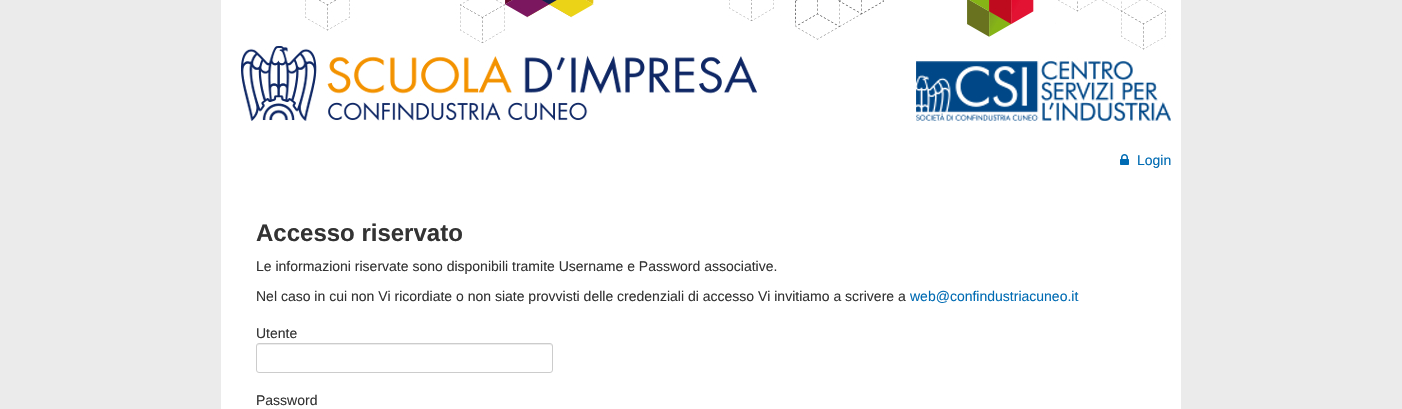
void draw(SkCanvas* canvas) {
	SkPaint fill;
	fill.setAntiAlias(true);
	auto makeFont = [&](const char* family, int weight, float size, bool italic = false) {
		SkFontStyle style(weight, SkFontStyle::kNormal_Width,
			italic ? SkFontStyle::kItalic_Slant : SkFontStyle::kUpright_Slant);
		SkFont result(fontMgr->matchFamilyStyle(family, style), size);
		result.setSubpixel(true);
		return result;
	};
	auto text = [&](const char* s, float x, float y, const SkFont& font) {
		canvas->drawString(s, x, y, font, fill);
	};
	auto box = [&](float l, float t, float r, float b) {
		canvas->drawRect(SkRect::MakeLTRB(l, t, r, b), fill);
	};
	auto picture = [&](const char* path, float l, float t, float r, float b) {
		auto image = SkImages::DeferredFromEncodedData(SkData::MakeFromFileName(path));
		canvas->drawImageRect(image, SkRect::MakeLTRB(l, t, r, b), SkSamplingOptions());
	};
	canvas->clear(0xFFEBEBEB);
	fill.setColor(0xFFFFFFFF);
	box(221, 0, 1181, 409);
	picture("image0.png", 241, 0, 1171, 121);
	picture("image1.png", 1120, 154, 1129, 165);
	fill.setColor(0xFFECECEC);
	canvas->drawPath(SkPathBuilder().moveTo(259, 345).lineTo(550, 345).cubicTo(551, 345, 552, 346, 552, 347).cubicTo(552, 346, 552, 344, 550, 344).lineTo(258, 344).lineTo(257, 347).cubicTo(257, 346, 258, 345, 259, 345).close().detach(), fill);
	fill.setStyle(SkPaint::kStroke_Style);
	fill.setStrokeWidth(1);
	fill.setColor(0xFFCCCCCC);
	canvas->drawRoundRect(SkRect::MakeLTRB(256.5f, 343.5f, 552.5f, 372.5f), 2.5f, 2.5f, fill);
	auto font1 = makeFont("Liberation Sans", 400, 14);
	fill.setStyle(SkPaint::kFill_Style);
	fill.setColor(0xFF006BB3);
	text("Login", 1137, 165, font1);
	auto font2 = makeFont("Liberation Sans", 700, 24);
	fill.setColor(0xFF333333);
	text("Accesso riservato", 256, 241, font2);
	text("Le informazioni riservate sono disponibili tramite Username e Password associative.", 256, 271, font1);
	text("Nel caso in cui non Vi ricordiate o non siate provvisti delle credenziali di accesso Vi invitiamo a scrivere a", 256, 301, font1);
	fill.setColor(0xFF006BB3);
	text("web@confindustriacuneo.it", 910, 301, font1);
	fill.setColor(0xFF333333);
	text("Utente", 256, 338, font1);
	text("Password", 256, 405, font1);
}
